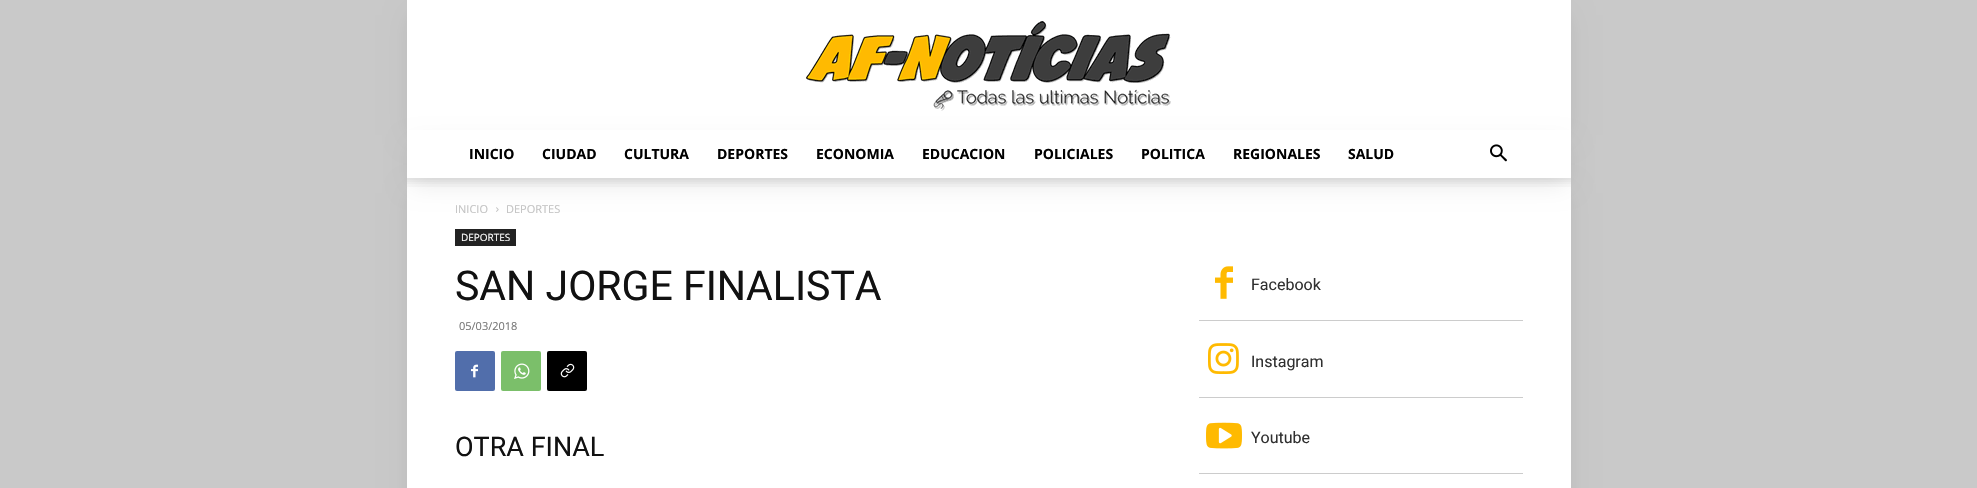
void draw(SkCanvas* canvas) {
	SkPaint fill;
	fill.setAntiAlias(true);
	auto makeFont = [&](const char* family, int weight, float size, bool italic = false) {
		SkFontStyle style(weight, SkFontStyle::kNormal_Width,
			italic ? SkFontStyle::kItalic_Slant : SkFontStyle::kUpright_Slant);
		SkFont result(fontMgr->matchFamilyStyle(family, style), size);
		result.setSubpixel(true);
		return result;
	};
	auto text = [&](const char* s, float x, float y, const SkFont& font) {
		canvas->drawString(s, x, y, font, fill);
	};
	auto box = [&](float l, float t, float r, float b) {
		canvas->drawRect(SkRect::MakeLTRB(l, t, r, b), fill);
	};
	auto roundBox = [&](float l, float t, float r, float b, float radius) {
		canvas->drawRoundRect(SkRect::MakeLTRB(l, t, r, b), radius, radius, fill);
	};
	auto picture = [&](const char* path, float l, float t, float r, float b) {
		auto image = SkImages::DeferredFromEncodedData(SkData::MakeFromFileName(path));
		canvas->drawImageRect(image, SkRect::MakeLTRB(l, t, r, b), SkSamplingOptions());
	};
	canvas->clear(0xFFC9C9C9);
	fill.setColor(0x1A000000);
	fill.setMaskFilter(SkMaskFilter::MakeBlur(kNormal_SkBlurStyle, 12.5f));
	canvas->drawRect(SkRect::MakeLTRB(412, 15, 1566, 135), fill);
	fill.setMaskFilter(nullptr);
	fill.setColor(0xFFFFFFFF);
	box(407, 0, 1571, 130);
	picture("image0.png", 806, 21, 1171, 111);
	fill.setColor(0x1A000000);
	fill.setMaskFilter(SkMaskFilter::MakeBlur(kNormal_SkBlurStyle, 12.5f));
	canvas->drawRect(SkRect::MakeLTRB(412, 193, 1566, 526), fill);
	fill.setMaskFilter(nullptr);
	fill.setColor(0xFFFFFFFF);
	box(407, 178, 1571, 488);
	picture("image3.png", 496, 207, 499, 212);
	fill.setColor(0x1A000000);
	fill.setMaskFilter(SkMaskFilter::MakeBlur(kNormal_SkBlurStyle, 12.5f));
	canvas->drawRect(SkRect::MakeLTRB(412, 145, 1566, 183), fill);
	fill.setMaskFilter(nullptr);
	fill.setColor(0xFFFFFFFF);
	box(407, 130, 1571, 178);
	picture("image1.png", 1490, 144, 1507, 162);
	picture("image2.png", 407, 178, 1571, 187);
	fill.setColor(0xFF222222);
	box(455, 229, 516, 246);
	fill.setColor(0xFF516EAB);
	roundBox(455, 351, 495, 391, 2);
	picture("image4.png", 471, 364, 478, 378);
	fill.setColor(0xFF7BBF6A);
	roundBox(501, 351, 541, 391, 2);
	picture("image5.png", 514, 363, 530, 379);
	fill.setColor(0xFF000000);
	roundBox(547, 351, 587, 391, 2);
	picture("image6.png", 560, 363, 575, 378);
	fill.setColor(0xFFCCCCCC);
	box(1199, 320, 1523, 321);
	picture("image7.png", 1215, 266, 1233, 299);
	box(1199, 397, 1523, 398);
	picture("image8.png", 1208, 343, 1239, 374);
	box(1199, 473, 1523, 474);
	picture("image9.png", 1206, 422, 1242, 449);
	auto font1 = makeFont("Open Sans", 700, 14);
	fill.setColor(0xFF000000);
	text("INICIO", 469, 159, font1);
	text("CIUDAD", 542, 159, font1);
	text("CULTURA", 624, 159, font1);
	text("DEPORTES", 717, 159, font1);
	text("ECONOMIA", 816, 159, font1);
	text("EDUCACION", 922, 159, font1);
	text("POLICIALES", 1034, 159, font1);
	text("POLITICA", 1141, 159, font1);
	text("REGIONALES", 1233, 159, font1);
	text("SALUD", 1348, 159, font1);
	auto font2 = makeFont("Open Sans", 400, 11);
	fill.setColor(0xFFC3C3C3);
	text("INICIO", 455, 213, font2);
	text("DEPORTES", 506, 213, font2);
	auto font3 = makeFont("Open Sans", 400, 10);
	fill.setColor(0xFFFFFFFF);
	text("DEPORTES", 461, 241, font3);
	auto font4 = makeFont("Roboto", 400, 41);
	fill.setColor(0xFF111111);
	text("SAN JORGE FINALISTA", 455, 300, font4);
	fill.setColor(0xFF767676);
	text("05/03/2018", 459, 330, font2);
	auto font5 = makeFont("Roboto", 400, 27);
	fill.setColor(0xFF111111);
	text("OTRA FINAL", 455, 456, font5);
	auto font6 = makeFont("Roboto", 400, 16);
	fill.setColor(0xFF303030);
	text("Facebook", 1251, 290, font6);
	text("Instagram", 1251, 367, font6);
	text("Youtube", 1251, 443, font6);
}
